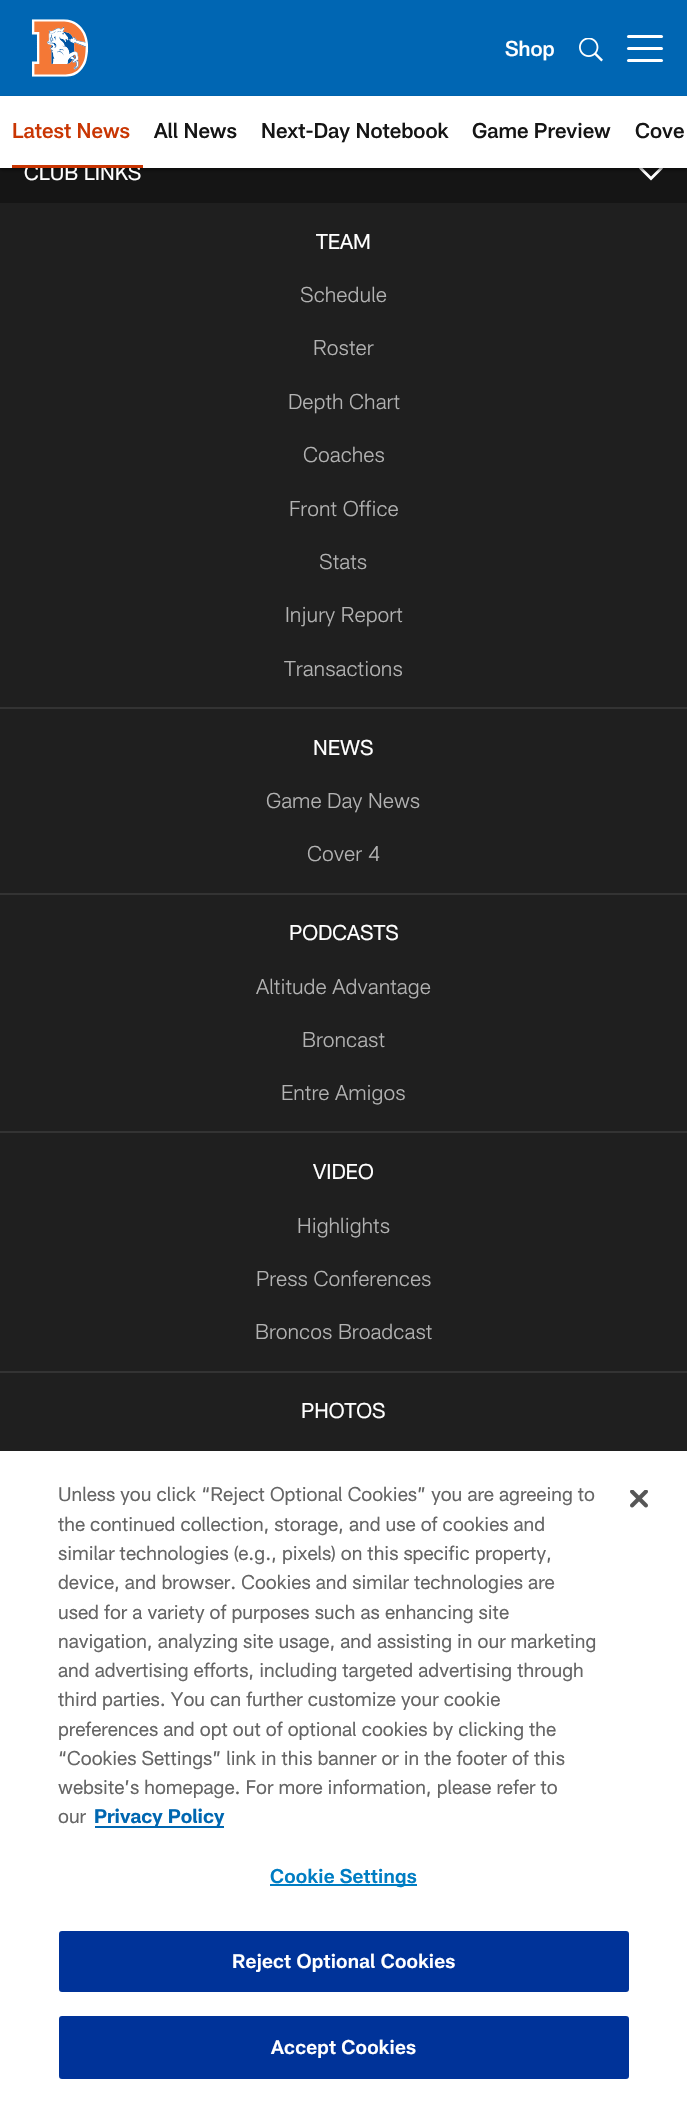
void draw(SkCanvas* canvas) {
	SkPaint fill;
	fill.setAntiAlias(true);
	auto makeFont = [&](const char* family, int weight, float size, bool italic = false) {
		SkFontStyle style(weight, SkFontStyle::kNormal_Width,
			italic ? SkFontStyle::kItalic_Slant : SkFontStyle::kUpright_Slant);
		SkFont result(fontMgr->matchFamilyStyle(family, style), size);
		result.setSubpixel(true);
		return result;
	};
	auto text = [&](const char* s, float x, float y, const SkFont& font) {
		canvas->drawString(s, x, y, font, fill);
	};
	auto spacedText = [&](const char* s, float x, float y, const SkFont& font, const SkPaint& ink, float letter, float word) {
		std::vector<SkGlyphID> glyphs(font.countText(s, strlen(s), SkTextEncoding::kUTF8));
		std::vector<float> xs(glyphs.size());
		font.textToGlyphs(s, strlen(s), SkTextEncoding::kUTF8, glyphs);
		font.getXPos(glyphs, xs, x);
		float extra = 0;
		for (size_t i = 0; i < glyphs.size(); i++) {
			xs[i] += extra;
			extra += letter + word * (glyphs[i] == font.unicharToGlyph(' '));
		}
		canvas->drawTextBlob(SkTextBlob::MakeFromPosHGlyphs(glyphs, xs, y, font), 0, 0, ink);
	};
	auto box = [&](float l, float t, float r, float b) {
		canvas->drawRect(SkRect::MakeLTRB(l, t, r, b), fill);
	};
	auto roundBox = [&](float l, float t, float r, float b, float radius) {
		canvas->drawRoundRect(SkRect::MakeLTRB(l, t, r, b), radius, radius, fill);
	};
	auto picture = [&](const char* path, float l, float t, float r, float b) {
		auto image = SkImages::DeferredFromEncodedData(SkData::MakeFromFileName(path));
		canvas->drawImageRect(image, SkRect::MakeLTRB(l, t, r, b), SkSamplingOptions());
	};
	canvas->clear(0xFF1F1F1F);
	fill.setColor(0xFF0066B3);
	box(0, 0, 687, 96);
	picture("image0.png", 31, 19, 89, 77);
	picture("image1.png", 579, 38, 603, 62);
	fill.setColor(0xFFFFFFFF);
	roundBox(627, 47, 663, 50, 1.5f);
	roundBox(627, 35, 663, 38, 1.5f);
	roundBox(627, 59, 663, 62, 1.5f);
	fill.setColor(0xFF151515);
	box(0, 168, 687, 203);
	fill.setColor(0xFFFFFFFF);
	canvas->drawPath(SkPathBuilder().moveTo(651, 176.5f).lineTo(661, 166.5f).lineTo(663, 168.5f).lineTo(651, 180.5f).lineTo(639, 168.5f).lineTo(641, 166.5f).lineTo(642, 167.5f).close().detach(), fill);
	fill.setColor(0x78000000);
	fill.setMaskFilter(SkMaskFilter::MakeBlur(kNormal_SkBlurStyle, 1.5f));
	canvas->drawRect(SkRect::MakeLTRB(0, 98, 687, 170), fill);
	fill.setMaskFilter(nullptr);
	fill.setColor(0xFFFFFFFF);
	box(0, 96, 687, 168);
	fill.setColor(0xFF333333);
	box(0, 707, 687, 709);
	box(0, 893, 687, 895);
	box(0, 1131, 687, 1133);
	box(0, 1371, 687, 1373);
	fill.setColor(0xFFFFFFFF);
	box(0, 1451, 687, 2103);
	fill.setColor(0xFF0067B1);
	box(95, 1826, 224, 1828);
	fill.setColor(0xFF007DC3);
	box(270, 1884, 417, 1886);
	fill.setColor(0xFF003399);
	canvas->drawRoundRect(SkRect::MakeLTRB(60, 1932, 628, 1991), 2, 2, fill);
	fill.setStyle(SkPaint::kStroke_Style);
	fill.setStrokeWidth(2);
	canvas->drawRoundRect(SkRect::MakeLTRB(60, 1932, 628, 1991), 2, 2, fill);
	fill.setStyle(SkPaint::kFill_Style);
	canvas->drawRoundRect(SkRect::MakeLTRB(60, 2017, 628, 2078), 2, 2, fill);
	fill.setStyle(SkPaint::kStroke_Style);
	canvas->drawRoundRect(SkRect::MakeLTRB(60, 2017, 628, 2078), 2, 2, fill);
	picture("image2.png", 630, 1490, 648, 1508);
	auto font1 = makeFont("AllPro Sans", 500, 21);
	fill.setStyle(SkPaint::kFill_Style);
	fill.setColor(0xFFFFFFFF);
	text("Shop", 505, 56, font1);
	fill.setColor(0xFFC93603);
	text("Latest News", 12, 138, font1);
	fill.setColor(0xFF151515);
	text("All News", 154, 138, font1);
	text("Next-Day Notebook", 261, 138, font1);
	text("Game Preview", 472, 138, font1);
	text("Cove", 635, 138, font1);
	auto font2 = makeFont("AllPro Sans", 400, 21);
	fill.setColor(0xFFFFFFFF);
	text("CLUB LINKS", 24, 180, font2);
	fill.setColor(0xFFC93603);
	box(12, 165, 143, 168);
	fill.setColor(0xFFFFFFFF);
	text("TEAM", 316, 249, font2);
	auto font3 = makeFont("AllPro Sans", 300, 21);
	fill.setColor(0xFFB2B2B2);
	text("Schedule", 300, 302, font3);
	text("Roster", 313, 355, font3);
	text("Depth Chart", 288, 409, font3);
	text("Coaches", 303, 462, font3);
	text("Front Office", 289, 516, font3);
	text("Stats", 319, 569, font3);
	text("Injury Report", 285, 622, font3);
	text("Transactions", 284, 676, font3);
	fill.setColor(0xFFFFFFFF);
	text("NEWS", 313, 755, font2);
	fill.setColor(0xFFB2B2B2);
	text("Game Day News", 266, 808, font3);
	text("Cover 4", 307, 861, font3);
	fill.setColor(0xFFFFFFFF);
	text("PODCASTS", 289, 940, font2);
	fill.setColor(0xFFB2B2B2);
	text("Altitude Advantage", 256, 994, font3);
	text("Broncast", 302, 1047, font3);
	text("Entre Amigos", 281, 1100, font3);
	fill.setColor(0xFFFFFFFF);
	text("VIDEO", 313, 1179, font2);
	fill.setColor(0xFFB2B2B2);
	text("Highlights", 297, 1233, font3);
	text("Press Conferences", 256, 1286, font3);
	text("Broncos Broadcast", 255, 1339, font3);
	fill.setColor(0xFFFFFFFF);
	text("PHOTOS", 301, 1418, font2);
	auto font4 = makeFont("AllPro Sans", 400, 19.5f);
	fill.setColor(0xFF666666);
	text("Unless you click “Reject Optional Cookies” you are agreeing to", 58, 1501, font4);
	text("the continued collection, storage, and use of cookies and", 58, 1531, font4);
	text("similar technologies (e.g., pixels) on this specific property,", 58, 1560, font4);
	text("device, and browser. Cookies and similar technologies are", 58, 1589, font4);
	text("used for a variety of purposes such as enhancing site", 58, 1619, font4);
	text("navigation, analyzing site usage, and assisting in our marketing", 58, 1648, font4);
	text("and advertising efforts, including targeted advertising through", 58, 1677, font4);
	text("third parties. You can further customize your cookie", 58, 1706, font4);
	text("preferences and opt out of optional cookies by clicking the", 58, 1736, font4);
	text("“Cookies Settings” link in this banner or in the footer of this", 58, 1765, font4);
	text("website’s homepage. For more information, please refer to", 58, 1794, font4);
	text("our", 58, 1823, font4);
	auto font5 = makeFont("AllPro Sans", 700, 19.5f);
	fill.setColor(0xFF0067B1);
	text("Privacy Policy", 94, 1823, font5);
	auto font6 = makeFont("AllPro Sans", 600, 19.5f);
	fill.setColor(0xFF007DC3);
	spacedText("Cookie Settings", 270, 1883, font6, fill, 0.2f, 0);
	fill.setColor(0xFFFFFFFF);
	spacedText("Reject Optional Cookies", 232, 1968, font6, fill, 0.2f, 0);
	spacedText("Accept Cookies", 271, 2054, font6, fill, 0.2f, 0);
}
